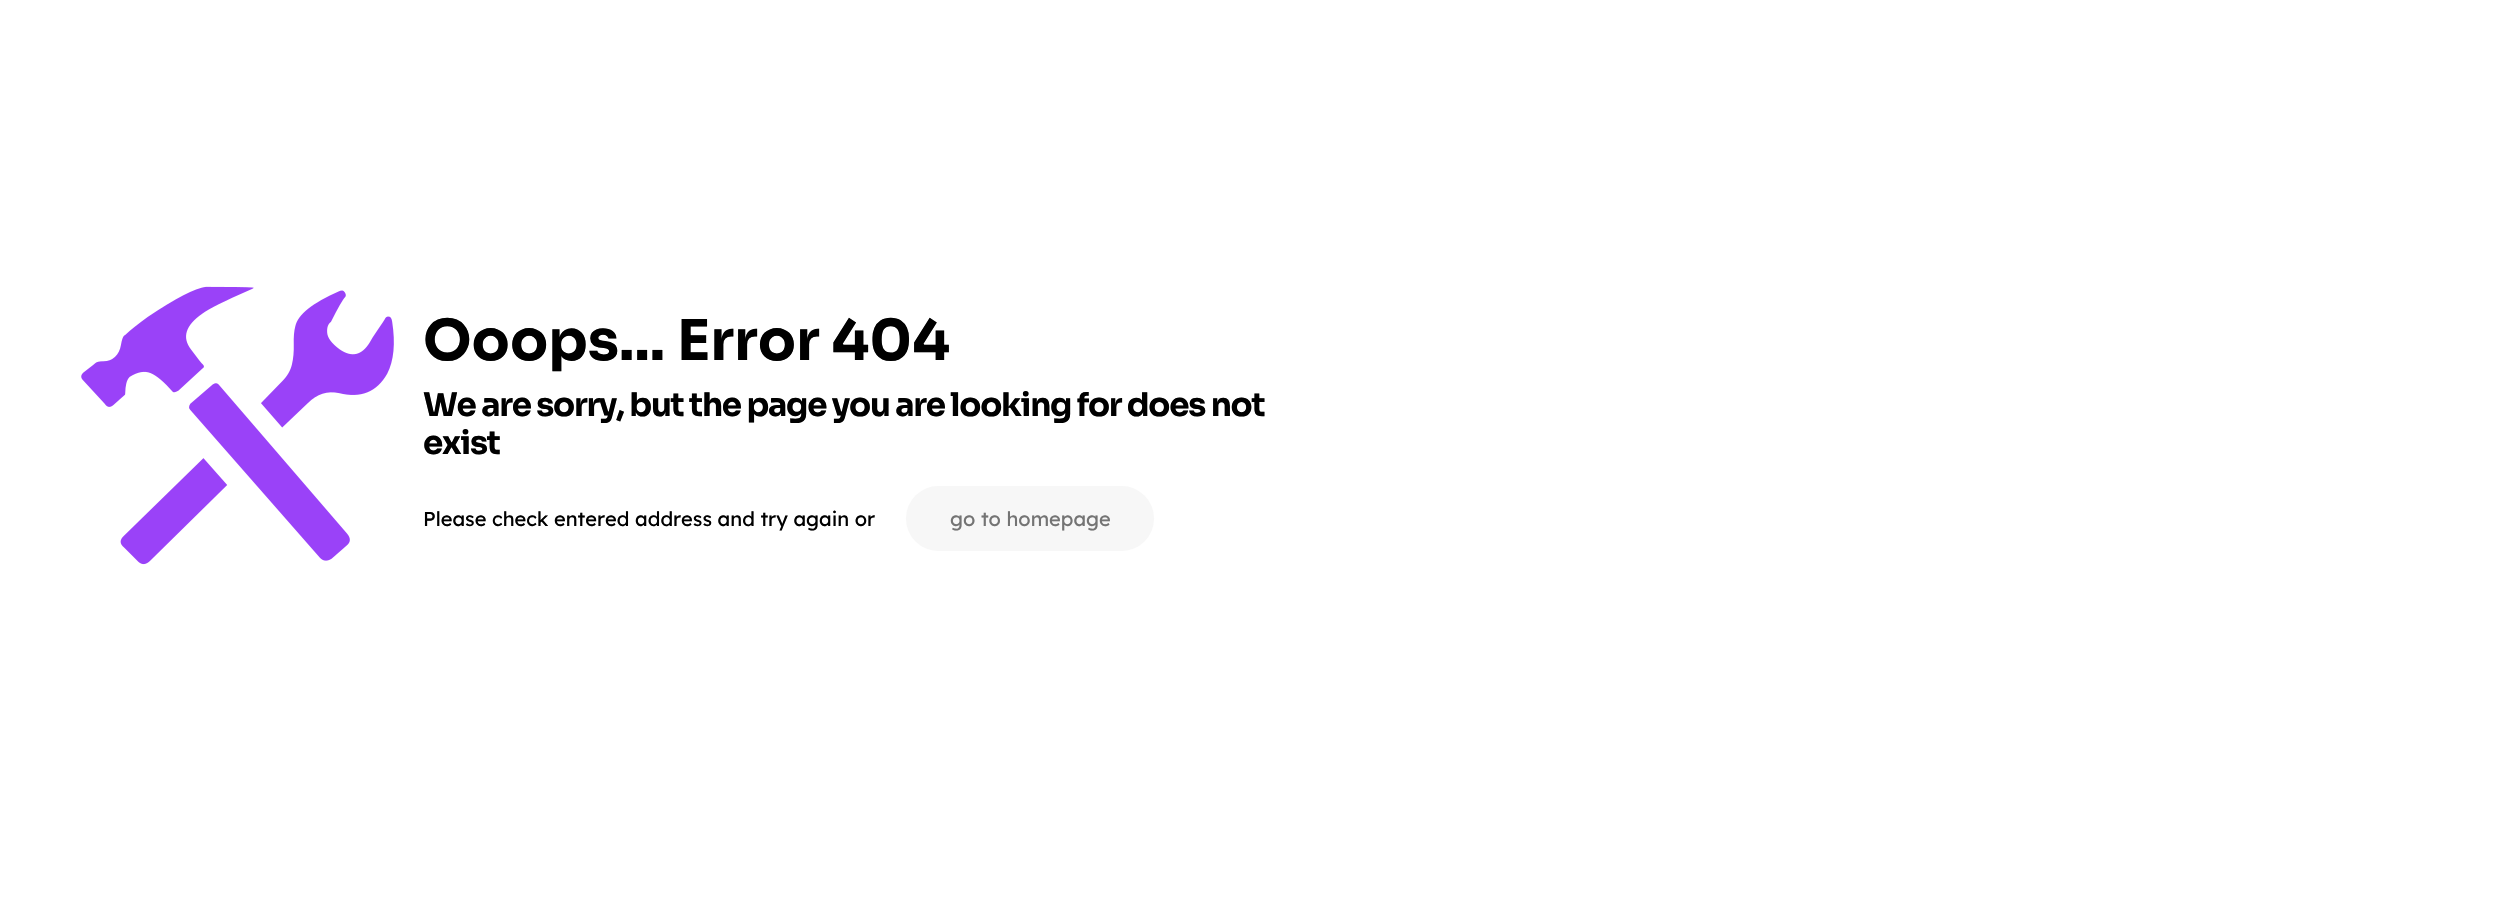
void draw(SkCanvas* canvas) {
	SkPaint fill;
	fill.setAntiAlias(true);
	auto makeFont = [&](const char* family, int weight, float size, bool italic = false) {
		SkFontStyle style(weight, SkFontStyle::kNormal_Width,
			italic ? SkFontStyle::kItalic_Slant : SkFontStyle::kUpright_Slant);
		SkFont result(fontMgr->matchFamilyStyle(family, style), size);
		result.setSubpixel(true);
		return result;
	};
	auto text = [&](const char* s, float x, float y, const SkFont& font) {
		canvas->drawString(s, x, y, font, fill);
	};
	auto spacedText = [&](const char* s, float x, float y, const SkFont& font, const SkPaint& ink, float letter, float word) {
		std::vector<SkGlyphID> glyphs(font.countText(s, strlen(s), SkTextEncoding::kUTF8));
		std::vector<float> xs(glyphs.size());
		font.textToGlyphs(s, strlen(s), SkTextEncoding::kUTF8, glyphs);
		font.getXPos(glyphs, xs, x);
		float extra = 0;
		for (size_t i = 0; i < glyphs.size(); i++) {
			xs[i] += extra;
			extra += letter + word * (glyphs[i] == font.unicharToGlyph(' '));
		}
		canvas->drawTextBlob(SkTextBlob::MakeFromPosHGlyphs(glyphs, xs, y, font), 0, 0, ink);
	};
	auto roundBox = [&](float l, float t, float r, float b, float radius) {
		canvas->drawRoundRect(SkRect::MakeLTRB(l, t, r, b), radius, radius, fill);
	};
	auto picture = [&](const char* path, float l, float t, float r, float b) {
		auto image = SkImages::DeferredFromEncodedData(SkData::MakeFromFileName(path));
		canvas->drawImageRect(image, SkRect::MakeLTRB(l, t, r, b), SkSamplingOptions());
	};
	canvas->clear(0xFFFFFFFF);
	picture("image0.png", 81, 286, 394, 565);
	fill.setColor(0xFFF7F7F7);
	roundBox(906, 486, 1154, 551, 32.5f);
	auto font1 = makeFont("Sora", 700, 56.25f);
	fill.setColor(0xFF000000);
	text("Ooops... Error 404", 423, 360, font1);
	auto font2 = makeFont("Sora", 700, 32.5f);
	spacedText("We are sorry, but the page you are looking for does not", 423, 416, font2, fill, -1.25f, 0);
	spacedText("exist", 423, 454, font2, fill, -1.25f, 0);
	auto font3 = makeFont("Lexend", 400, 20);
	text("Please check entered address and try again or", 423, 526, font3);
	fill.setColor(0xFF747474);
	text("go to homepage", 950, 526, font3);
}
